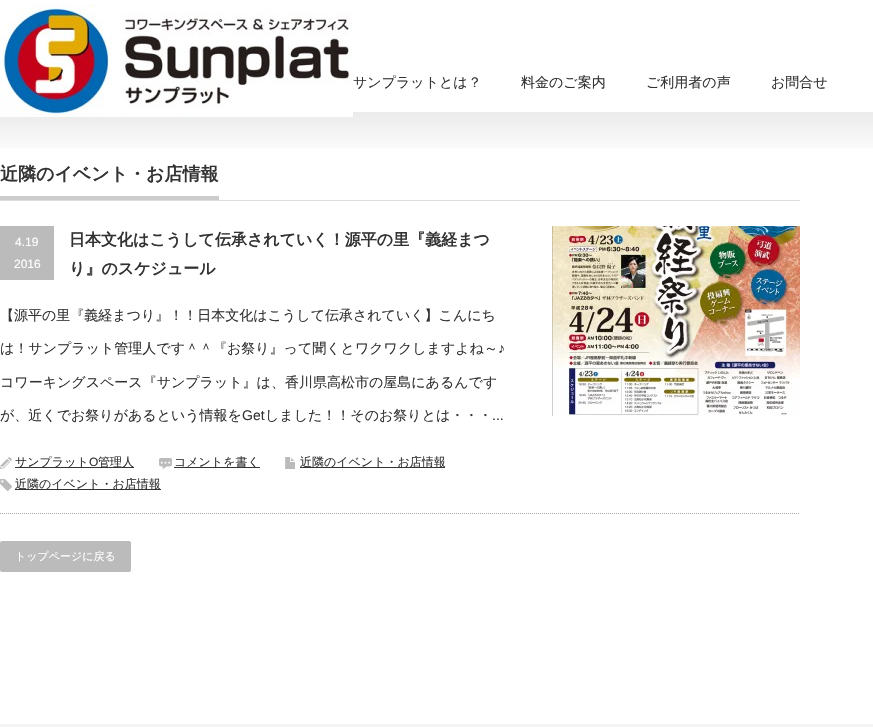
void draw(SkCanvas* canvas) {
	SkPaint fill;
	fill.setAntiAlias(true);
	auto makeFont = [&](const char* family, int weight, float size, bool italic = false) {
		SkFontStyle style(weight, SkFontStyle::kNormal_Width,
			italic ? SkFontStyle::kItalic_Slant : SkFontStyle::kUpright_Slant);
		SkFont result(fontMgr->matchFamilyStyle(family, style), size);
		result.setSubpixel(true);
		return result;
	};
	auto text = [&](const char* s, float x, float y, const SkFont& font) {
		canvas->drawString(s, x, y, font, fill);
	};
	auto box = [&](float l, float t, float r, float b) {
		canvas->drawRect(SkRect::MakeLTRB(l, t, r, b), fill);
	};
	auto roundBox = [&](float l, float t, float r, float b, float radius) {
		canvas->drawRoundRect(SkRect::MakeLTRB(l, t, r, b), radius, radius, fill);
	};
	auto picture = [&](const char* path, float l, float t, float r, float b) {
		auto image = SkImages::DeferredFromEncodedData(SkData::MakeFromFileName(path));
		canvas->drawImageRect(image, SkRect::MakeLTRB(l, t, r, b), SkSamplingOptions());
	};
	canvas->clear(0xFFFFFFFF);
	picture("image1.png", 0, 112, 873, 148);
	picture("image0.png", 0, 5, 353, 117);
	fill.setColor(0xFFDDDDDD);
	box(0, 200, 800, 201);
	fill.setColor(0xFFCCCCCC);
	box(0, 196, 219, 200);
	fill.setStyle(SkPaint::kStroke_Style);
	fill.setStrokeWidth(1);
	fill.setColor(0xFFAAAAAA);
	fill.setPathEffect(SkDashPathEffect::Make({{1, 1}}, 0));
	canvas->drawPath(SkPathBuilder().moveTo(0, 513.5f).lineTo(800, 513.5f).detach(), fill);
	fill.setPathEffect(nullptr);
	fill.setStyle(SkPaint::kFill_Style);
	fill.setColor(0xFFBBBBBB);
	box(0, 226, 54, 280);
	picture("image2.png", 0, 457, 12, 469);
	fill.setColor(0xFF333333);
	box(15, 467, 134, 468);
	picture("image3.png", 159, 458, 172, 469);
	box(174, 467, 260, 468);
	picture("image4.png", 285, 457, 295, 469);
	box(300, 467, 445, 468);
	picture("image5.png", 0, 479, 12, 491);
	box(15, 489, 161, 490);
	picture("image6.png", 552, 226, 800, 416);
	fill.setColor(0xFFBBBBBB);
	roundBox(0, 541, 131, 572, 2);
	fill.setColor(0xFFF4F4F4);
	box(0, 724, 873, 727);
	auto font1 = makeFont("WenQuanYi Zen Hei", 500, 14);
	fill.setColor(0xFF333333);
	text("サンプラットとは？", 353, 87, font1);
	text("料金のご案内", 521, 87, font1);
	text("ご利用者の声", 646, 87, font1);
	text("お問合せ", 771, 87, font1);
	auto font2 = makeFont("WenQuanYi Zen Hei", 700, 18);
	text("近隣のイベント・お店情報", 0, 180, font2);
	auto font3 = makeFont("Liberation Sans", 400, 12);
	fill.setColor(0xFFFFFFFF);
	text("4.19", 15, 246, font3);
	text("2016", 14, 268, font3);
	auto font4 = makeFont("WenQuanYi Zen Hei", 700, 16);
	fill.setColor(0xFF333333);
	text("日本文化はこうして伝承されていく！源平の里『義経まつ", 69, 245, font4);
	text("り』のスケジュール", 69, 274, font4);
	text("【源平の里『義経まつり』！！日本文化はこうして伝承されていく】こんにち", 0, 320, font1);
	text("は！サンプラット管理人です＾＾『お祭り』って聞くとワクワクしますよね～", 0, 353, font1);
	auto font5 = makeFont("Liberation Sans", 400, 14);
	text("♪", 498, 353, font5);
	text("コワーキングスペース『サンプラット』は、香川県高松市の屋島にあるんです", 0, 387, font1);
	text("が、近くでお祭りがあるという情報を", 0, 420, font1);
	text("Get", 242, 420, font5);
	text("しました！！そのお祭りとは・・・", 265, 420, font1);
	text("...", 492, 420, font5);
	auto font6 = makeFont("WenQuanYi Zen Hei", 500, 12);
	text("サンプラット", 15, 466, font6);
	text("O", 89, 466, font3);
	text("管理人", 98, 466, font6);
	text("コメントを書く", 174, 466, font6);
	text("近隣のイベント・お店情報", 300, 466, font6);
	text("近隣のイベント・お店情報", 15, 488, font6);
	auto font7 = makeFont("WenQuanYi Zen Hei", 500, 11);
	fill.setColor(0xFFFFFFFF);
	text("トップページに戻る", 15, 560, font7);
}
